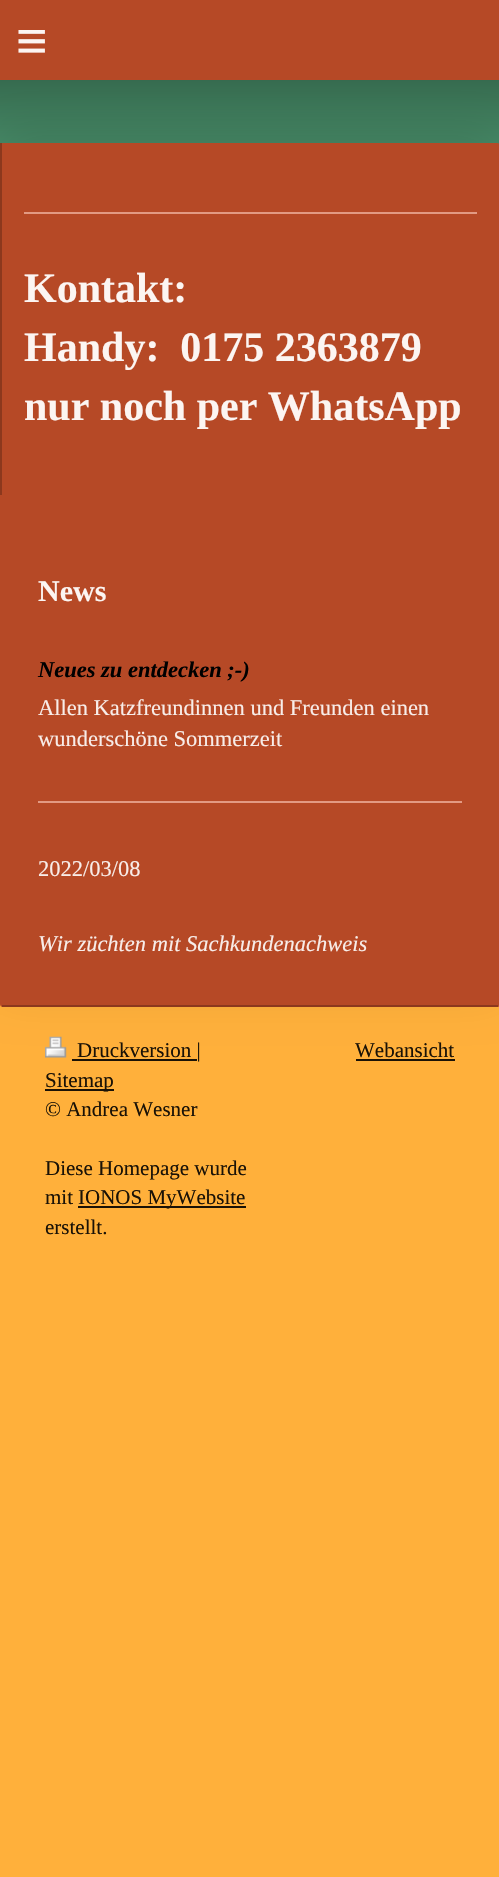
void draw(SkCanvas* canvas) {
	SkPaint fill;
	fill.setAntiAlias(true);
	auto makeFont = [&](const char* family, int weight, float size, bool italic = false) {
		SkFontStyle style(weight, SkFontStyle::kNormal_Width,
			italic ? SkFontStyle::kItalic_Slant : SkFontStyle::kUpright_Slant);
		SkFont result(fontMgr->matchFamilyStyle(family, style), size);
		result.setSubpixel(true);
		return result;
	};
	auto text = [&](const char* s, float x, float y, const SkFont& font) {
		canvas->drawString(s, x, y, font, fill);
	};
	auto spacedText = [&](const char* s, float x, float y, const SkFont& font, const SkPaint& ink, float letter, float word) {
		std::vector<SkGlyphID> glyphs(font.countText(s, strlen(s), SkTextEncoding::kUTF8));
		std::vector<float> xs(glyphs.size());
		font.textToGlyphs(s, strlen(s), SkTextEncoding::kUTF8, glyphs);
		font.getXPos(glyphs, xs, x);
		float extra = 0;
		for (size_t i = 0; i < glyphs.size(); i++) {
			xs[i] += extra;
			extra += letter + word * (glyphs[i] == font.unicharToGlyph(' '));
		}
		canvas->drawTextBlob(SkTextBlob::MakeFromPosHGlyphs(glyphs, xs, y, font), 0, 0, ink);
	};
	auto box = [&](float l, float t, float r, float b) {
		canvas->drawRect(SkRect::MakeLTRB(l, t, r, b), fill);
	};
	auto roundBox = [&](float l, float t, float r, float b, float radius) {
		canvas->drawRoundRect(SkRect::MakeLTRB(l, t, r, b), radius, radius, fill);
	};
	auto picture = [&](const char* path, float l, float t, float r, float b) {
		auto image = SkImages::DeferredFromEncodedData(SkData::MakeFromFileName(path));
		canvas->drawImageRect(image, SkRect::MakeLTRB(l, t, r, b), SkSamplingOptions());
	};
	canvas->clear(0xFFFFB03B);
	{
		const SkColor colors[] = {0xFF56A77D, 0xFF366B4F};
		const float stops[] = {0, 1};
		const SkPoint ends[] = {{0, 206}, {0, 80}};
		fill.setShader(SkGradientShader::MakeLinear(ends, colors, stops, 2, SkTileMode::kClamp));
		fill.setAlpha(255);
	}
	box(0, 80, 499, 144);
	fill.setShader(nullptr);
	fill.setColor(0x1A000000);
	fill.setMaskFilter(SkMaskFilter::MakeBlur(kNormal_SkBlurStyle, 22.5f));
	canvas->drawRoundRect(SkRect::MakeLTRB(0, 128, 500, 992), 3, 3, fill);
	fill.setMaskFilter(nullptr);
	fill.setColor(0xFFB64926);
	box(0, 0, 499, 80);
	roundBox(0, 143, 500, 1007, 3);
	fill.setColor(0xFF8C381D);
	box(2, 1005, 498, 1007);
	box(0, 143, 2, 495);
	fill.setColor(0xFFE29A83);
	box(24, 212, 477, 214);
	box(38, 801, 462, 803);
	picture("image0.png", 45, 1036, 67, 1058);
	fill.setColor(0xFF1A1206);
	box(72, 1059, 197, 1061);
	box(45, 1089, 114, 1091);
	box(78, 1206, 246, 1208);
	box(356, 1059, 455, 1061);
	auto font1 = makeFont("Liberation Sans", 400, 54);
	fill.setColor(0xFFFCF5F2);
	spacedText("≡", 16, 59, font1, fill, 16, 0);
	auto font2 = makeFont("Liberation Serif", 700, 42);
	text("Kontakt:", 24, 302, font2);
	text("Handy:  0175 2363879", 24, 361, font2);
	text("nur noch per WhatsApp", 24, 420, font2);
	auto font3 = makeFont("Liberation Serif", 700, 30);
	text("News", 38, 601, font3);
	auto font4 = makeFont("Liberation Serif", 700, 22.5f, true);
	fill.setColor(0xFF000000);
	text("Neues zu entdecken ;-)", 38, 677, font4);
	auto font5 = makeFont("Liberation Serif", 400, 22.5f);
	fill.setColor(0xFFF8EDE9);
	text("Allen Katzfreundinnen und Freunden einen", 38, 715, font5);
	text("wunderschöne Sommerzeit", 38, 746, font5);
	text("2022/03/08", 38, 876, font5);
	auto font6 = makeFont("Liberation Serif", 400, 22.5f, true);
	text("Wir züchten mit Sachkundenachweis", 38, 951, font6);
	auto font7 = makeFont("Liberation Serif", 400, 21);
	fill.setColor(0xFF1A1206);
	text("Druckversion |", 77, 1057, font7);
	text("Sitemap", 45, 1087, font7);
	text("© Andrea Wesner", 45, 1116, font7);
	text("Diese Homepage wurde", 45, 1175, font7);
	text("mit", 45, 1204, font7);
	text("IONOS MyWebsite", 78, 1204, font7);
	text("erstellt.", 45, 1234, font7);
	text("Webansicht", 355, 1057, font7);
}
